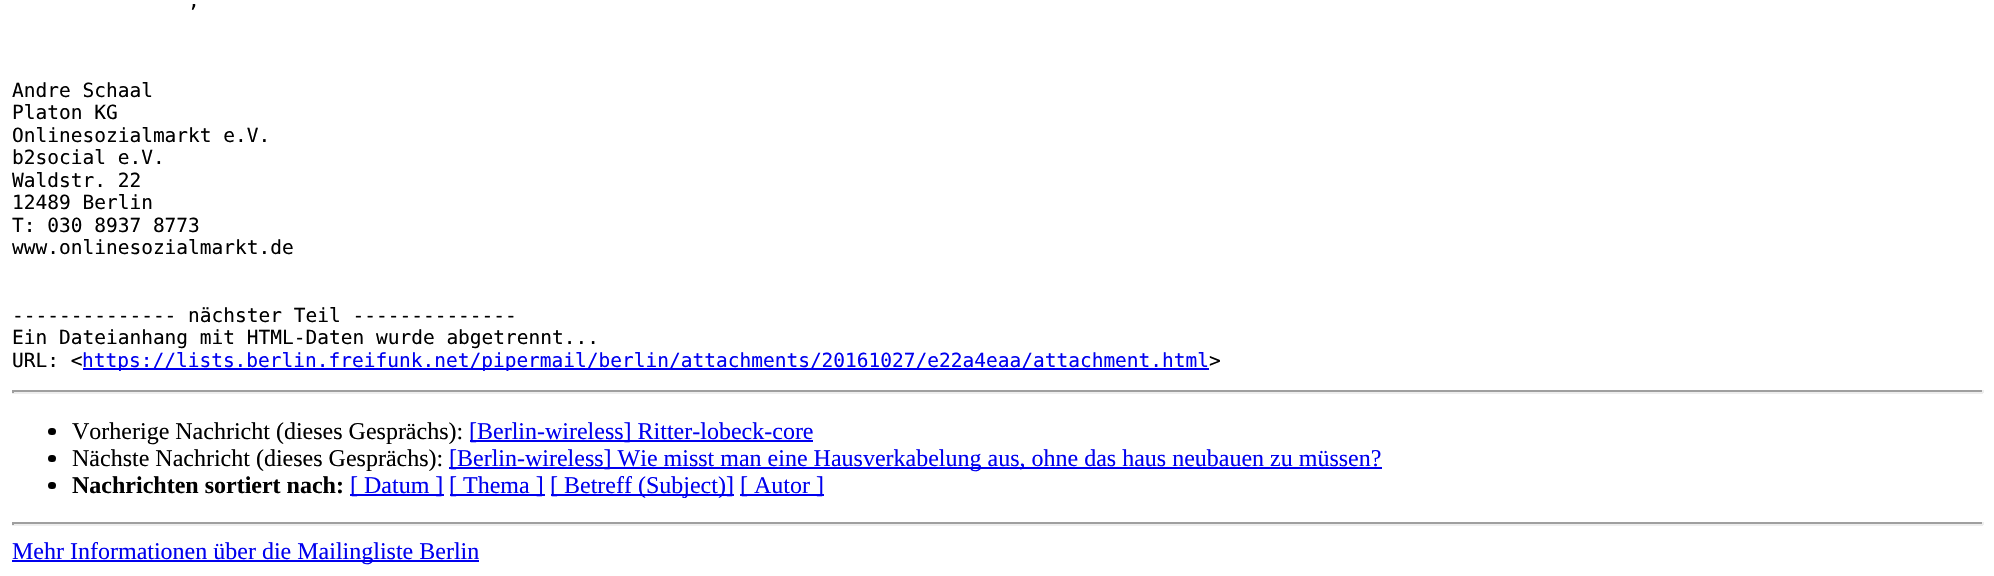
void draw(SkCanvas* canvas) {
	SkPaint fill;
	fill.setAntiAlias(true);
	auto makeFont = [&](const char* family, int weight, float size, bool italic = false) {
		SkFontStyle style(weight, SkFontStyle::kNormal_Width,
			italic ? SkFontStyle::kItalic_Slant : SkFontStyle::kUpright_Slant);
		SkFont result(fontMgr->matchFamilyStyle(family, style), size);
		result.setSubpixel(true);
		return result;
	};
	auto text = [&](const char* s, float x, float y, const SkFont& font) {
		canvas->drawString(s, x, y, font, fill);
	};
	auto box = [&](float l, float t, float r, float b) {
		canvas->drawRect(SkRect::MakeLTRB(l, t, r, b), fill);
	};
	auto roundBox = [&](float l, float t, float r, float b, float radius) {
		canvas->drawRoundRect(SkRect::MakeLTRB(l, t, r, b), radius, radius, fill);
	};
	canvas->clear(0xFFFFFFFF);
	fill.setColor(0xFF0000EE);
	box(83, 368, 1209, 370);
	fill.setColor(0xFF9F9F9F);
	box(12, 390, 1983, 392);
	fill.setColor(0xFFEEEEEE);
	box(1982, 390, 1984, 393);
	box(12, 392, 1983, 394);
	fill.setColor(0xFF9F9F9F);
	box(12, 390, 14, 393);
	fill.setColor(0xFF000000);
	roundBox(48, 428, 56, 435, 3.5f);
	fill.setColor(0xFF0000EE);
	box(470, 440, 813, 442);
	fill.setColor(0xFF000000);
	roundBox(48, 455, 56, 462, 3.5f);
	fill.setColor(0xFF0000EE);
	box(449, 467, 1382, 469);
	fill.setColor(0xFF000000);
	roundBox(48, 482, 56, 489, 3.5f);
	fill.setColor(0xFF0000EE);
	box(350, 494, 444, 496);
	box(450, 494, 545, 496);
	box(551, 494, 734, 496);
	box(740, 494, 824, 496);
	fill.setColor(0xFF9F9F9F);
	box(12, 522, 1983, 524);
	fill.setColor(0xFFEEEEEE);
	box(1982, 522, 1984, 525);
	box(12, 524, 1983, 526);
	fill.setColor(0xFF9F9F9F);
	box(12, 522, 14, 525);
	fill.setColor(0xFF0000EE);
	box(12, 560, 479, 562);
	auto font1 = makeFont("DejaVu Sans Mono", 400, 19.5f);
	fill.setColor(0xFF000000);
	text(",", 188, 7, font1);
	text("Andre Schaal", 12, 97, font1);
	text("Platon KG", 12, 119, font1);
	text("Onlinesozialmarkt e.V.", 12, 142, font1);
	text("b2social e.V.", 12, 164, font1);
	text("Waldstr. 22", 12, 187, font1);
	text("12489 Berlin", 12, 209, font1);
	text("T: 030 8937 8773", 12, 232, font1);
	text("www.onlinesozialmarkt.de", 12, 254, font1);
	text("-------------- nächster Teil --------------", 12, 322, font1);
	text("Ein Dateianhang mit HTML-Daten wurde abgetrennt...", 12, 344, font1);
	text("URL: <", 12, 367, font1);
	fill.setColor(0xFF0000EE);
	text("https://lists.berlin.freifunk.net/pipermail/berlin/attachments/20161027/e22a4eaa/attachment.html", 82, 367, font1);
	fill.setColor(0xFF000000);
	text(">", 1209, 367, font1);
	auto font2 = makeFont("Liberation Serif", 400, 24);
	text("Vorherige Nachricht (dieses Gesprächs):", 72, 439, font2);
	fill.setColor(0xFF0000EE);
	text("[Berlin-wireless] Ritter-lobeck-core", 469, 439, font2);
	fill.setColor(0xFF000000);
	text("Nächste Nachricht (dieses Gesprächs):", 72, 466, font2);
	fill.setColor(0xFF0000EE);
	text("[Berlin-wireless] Wie misst man eine Hausverkabelung aus, ohne das haus neubauen zu müssen?", 449, 466, font2);
	auto font3 = makeFont("Liberation Serif", 700, 24);
	fill.setColor(0xFF000000);
	text("Nachrichten sortiert nach:", 72, 493, font3);
	fill.setColor(0xFF0000EE);
	text("[ Datum ]", 350, 493, font2);
	text("[ Thema ]", 449, 493, font2);
	text("[ Betreff (Subject)]", 550, 493, font2);
	text("[ Autor ]", 740, 493, font2);
	text("Mehr Informationen über die Mailingliste Berlin", 12, 559, font2);
}
